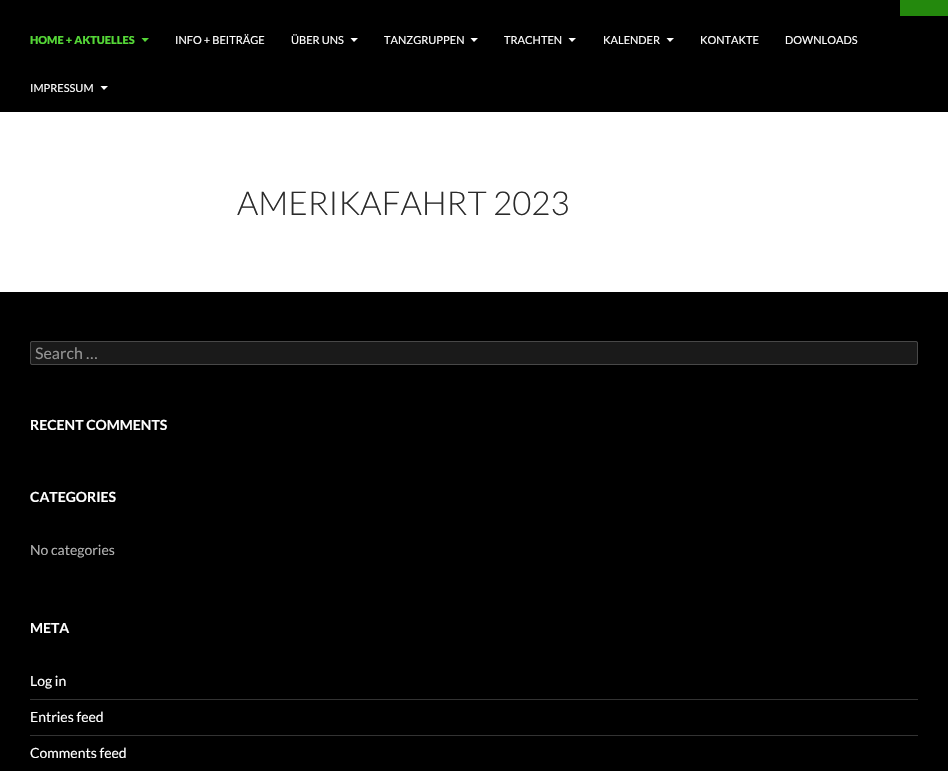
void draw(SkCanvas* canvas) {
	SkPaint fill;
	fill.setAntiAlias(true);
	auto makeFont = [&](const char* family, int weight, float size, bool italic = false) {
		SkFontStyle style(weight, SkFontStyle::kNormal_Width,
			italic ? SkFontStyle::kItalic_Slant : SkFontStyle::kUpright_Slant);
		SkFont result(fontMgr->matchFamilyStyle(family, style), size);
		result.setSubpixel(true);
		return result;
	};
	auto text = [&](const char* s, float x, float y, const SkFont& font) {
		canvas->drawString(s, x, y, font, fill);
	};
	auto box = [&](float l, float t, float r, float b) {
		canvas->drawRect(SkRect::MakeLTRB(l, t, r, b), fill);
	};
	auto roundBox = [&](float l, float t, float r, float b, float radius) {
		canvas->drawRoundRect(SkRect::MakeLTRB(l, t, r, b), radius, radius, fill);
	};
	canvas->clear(0xFFFFFFFF);
	fill.setColor(0xFF000000);
	box(0, 0, 948, 112);
	fill.setColor(0xFF24890D);
	box(900, 0, 948, 16);
	fill.setColor(0xFF55D737);
	canvas->drawPath(SkPathBuilder().moveTo(141.5f, 38).lineTo(145, 42).lineTo(149, 38).close().detach(), fill);
	fill.setColor(0xFFFFFFFF);
	canvas->drawPath(SkPathBuilder().moveTo(350.5f, 38).lineTo(354, 42).lineTo(358, 38).close().detach(), fill);
	canvas->drawPath(SkPathBuilder().moveTo(470.5f, 38).lineTo(474, 42).lineTo(478, 38).close().detach(), fill);
	canvas->drawPath(SkPathBuilder().moveTo(568.5f, 38).lineTo(572, 42).lineTo(576, 38).close().detach(), fill);
	canvas->drawPath(SkPathBuilder().moveTo(666.5f, 38).lineTo(670, 42).lineTo(674, 38).close().detach(), fill);
	canvas->drawPath(SkPathBuilder().moveTo(100.5f, 86).lineTo(104, 90).lineTo(108, 86).close().detach(), fill);
	fill.setColor(0xFF000000);
	box(0, 292, 948, 771);
	fill.setColor(0xFF1A1A1A);
	roundBox(30, 341, 918, 365, 2);
	fill.setStyle(SkPaint::kStroke_Style);
	fill.setStrokeWidth(1);
	fill.setColor(0x33FFFFFF);
	canvas->drawRoundRect(SkRect::MakeLTRB(30.5f, 341.5f, 917.5f, 364.5f), 1.5f, 1.5f, fill);
	fill.setStyle(SkPaint::kFill_Style);
	fill.setColor(0xFF333333);
	box(30, 699, 918, 700);
	box(30, 735, 918, 736);
	auto font1 = makeFont("Lato", 900, 11);
	fill.setColor(0xFF55D737);
	text("HOME + AKTUELLES", 30, 44, font1);
	auto font2 = makeFont("Lato", 400, 11);
	fill.setColor(0xFFFFFFFF);
	text("INFO + BEITRÄGE", 175, 44, font2);
	text("ÜBER UNS", 291, 44, font2);
	text("TANZGRUPPEN", 384, 44, font2);
	text("TRACHTEN", 504, 44, font2);
	text("KALENDER", 603, 44, font2);
	text("KONTAKTE", 700, 44, font2);
	text("DOWNLOADS", 785, 44, font2);
	text("IMPRESSUM", 30, 92, font2);
	auto font3 = makeFont("Lato", 300, 33);
	fill.setColor(0xFF2B2B2B);
	text("AMERIKAFAHRT 2023", 237, 215, font3);
	auto font4 = makeFont("Lato", 400, 16);
	fill.setColor(0xFF939393);
	text("Search …", 35, 359, font4);
	auto font5 = makeFont("Lato", 700, 14);
	fill.setColor(0xFFFFFFFF);
	text("RECENT COMMENTS", 30, 430, font5);
	text("CATEGORIES", 30, 502, font5);
	auto font6 = makeFont("Lato", 400, 14);
	fill.setColor(0xFFB3B3B3);
	text("No categories", 30, 555, font6);
	fill.setColor(0xFFFFFFFF);
	text("META", 30, 633, font5);
	text("Log in", 30, 686, font6);
	text("Entries feed", 30, 722, font6);
	text("Comments feed", 30, 758, font6);
}
